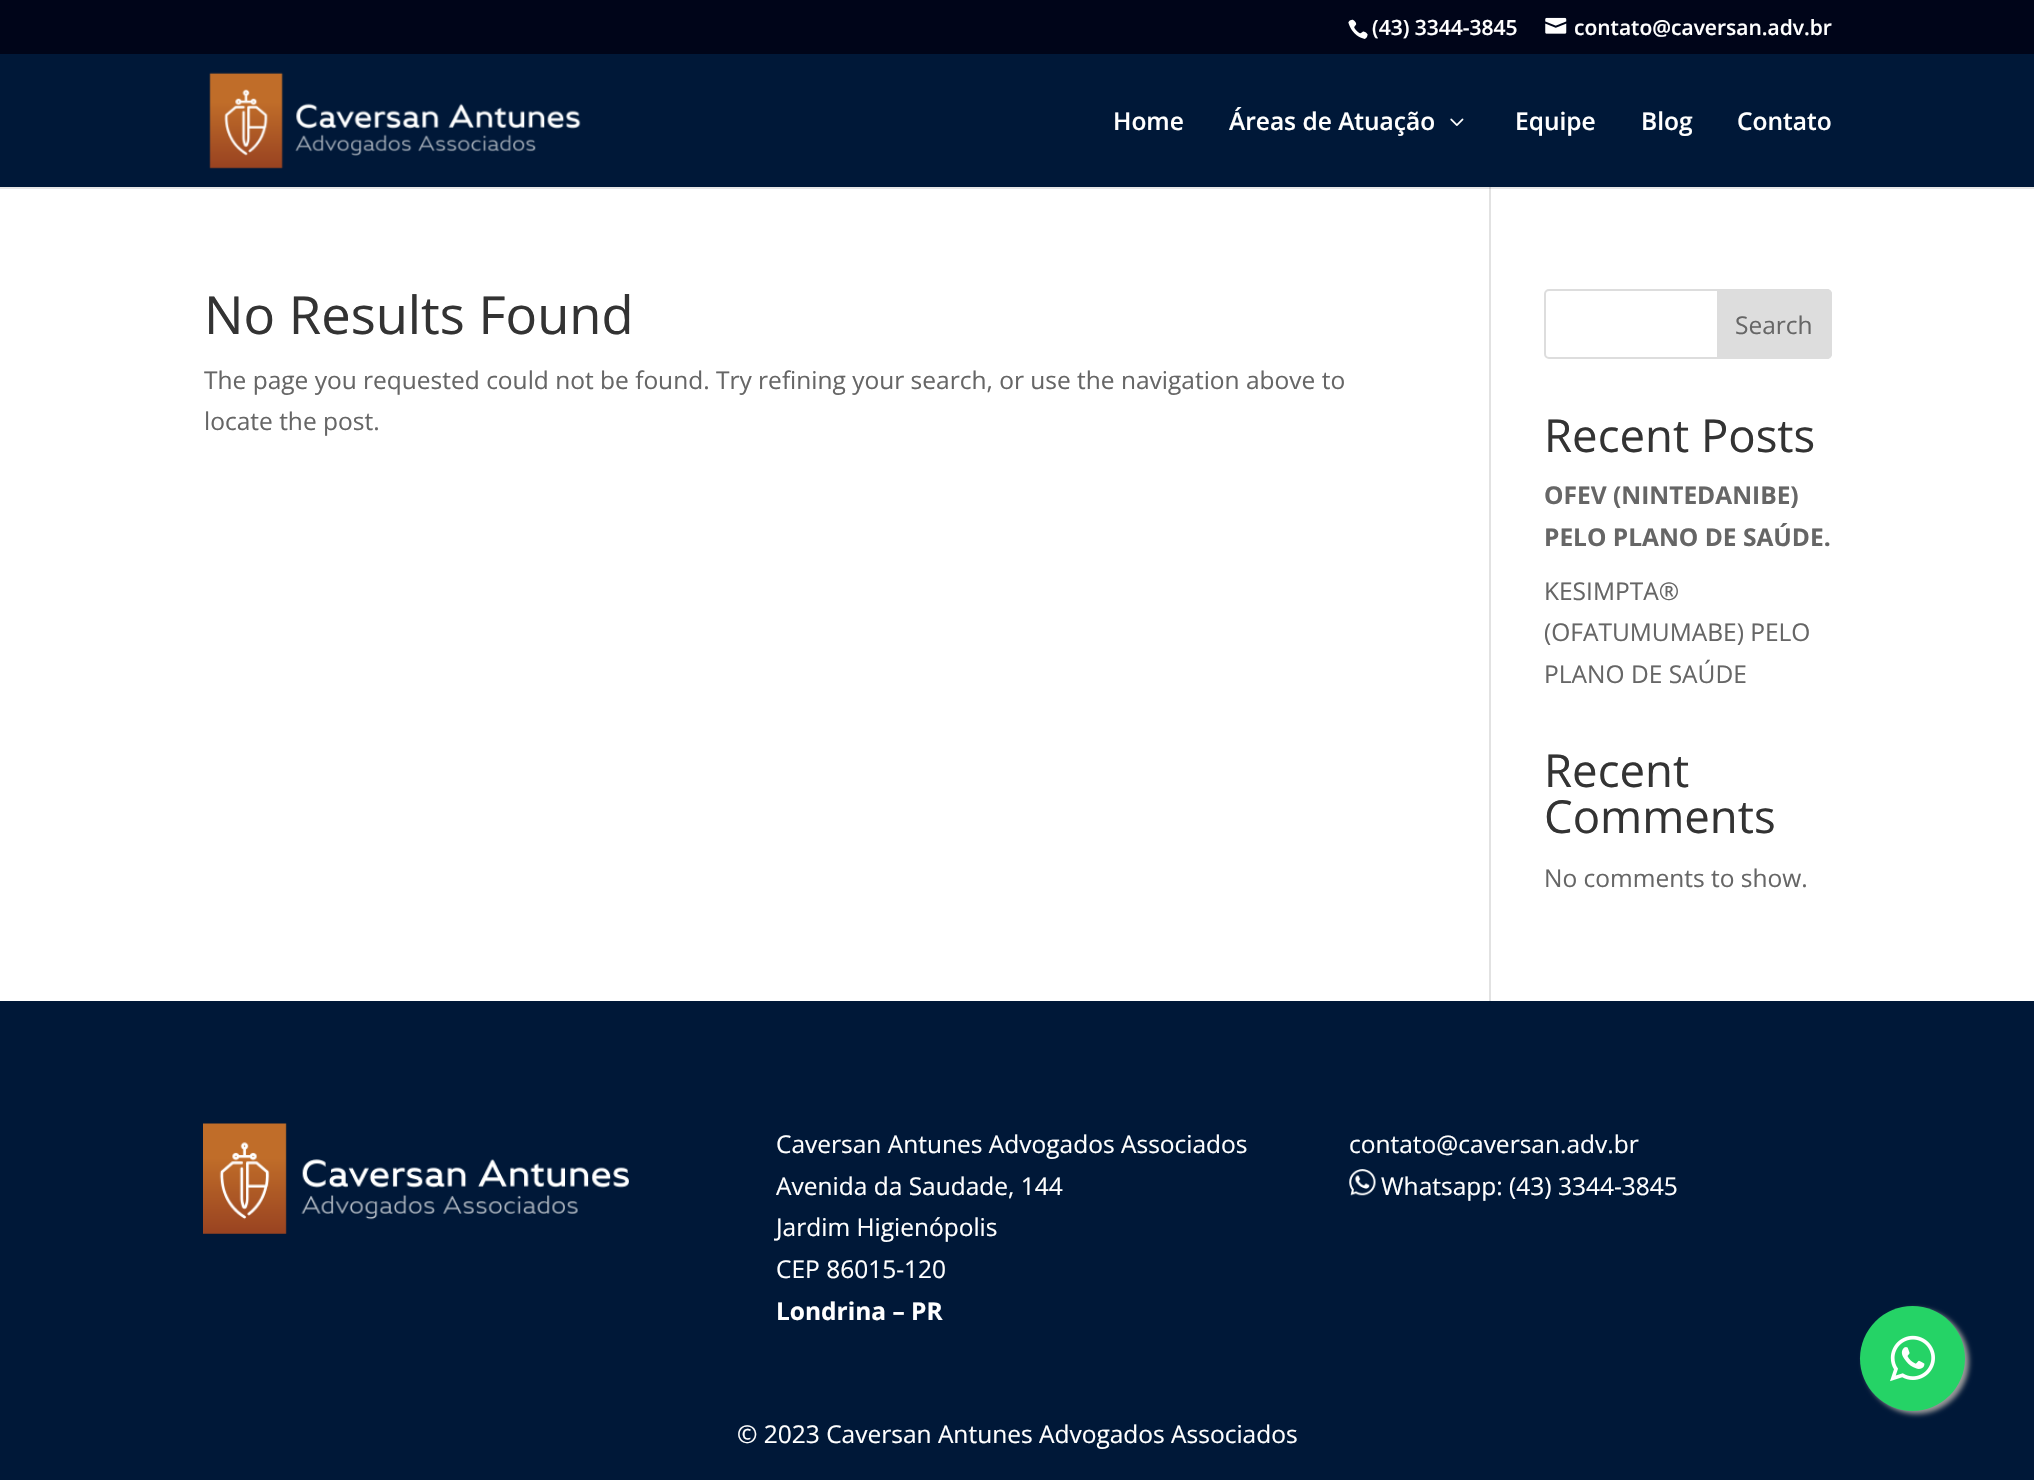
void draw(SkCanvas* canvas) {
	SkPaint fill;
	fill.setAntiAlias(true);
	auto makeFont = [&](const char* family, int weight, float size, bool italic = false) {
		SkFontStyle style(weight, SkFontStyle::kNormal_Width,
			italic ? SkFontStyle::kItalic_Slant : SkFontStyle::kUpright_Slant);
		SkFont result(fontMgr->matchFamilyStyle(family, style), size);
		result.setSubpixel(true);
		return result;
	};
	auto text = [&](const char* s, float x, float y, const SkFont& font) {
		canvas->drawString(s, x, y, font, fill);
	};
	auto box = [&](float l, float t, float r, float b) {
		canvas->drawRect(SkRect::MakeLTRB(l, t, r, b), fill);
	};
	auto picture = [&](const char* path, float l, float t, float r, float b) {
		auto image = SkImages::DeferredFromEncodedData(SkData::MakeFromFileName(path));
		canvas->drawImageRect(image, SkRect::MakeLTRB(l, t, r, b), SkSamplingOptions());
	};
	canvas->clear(0xFFFFFFFF);
	fill.setColor(0xFFE6E6E6);
	box(0, 187, 2034, 189);
	fill.setColor(0xFF000519);
	box(0, 0, 2034, 54);
	picture("image0.png", 1348, 19, 1368, 39);
	picture("image1.png", 1545, 17, 1567, 34);
	fill.setColor(0xFF001838);
	box(0, 54, 2034, 187);
	picture("image2.png", 209, 72, 581, 169);
	picture("image3.png", 1450, 118, 1464, 126);
	fill.setColor(0xFFE2E2E2);
	box(1489, 187, 1491, 1001);
	fill.setColor(0xFFCBCBCB);
	box(1489, 187, 1491, 189);
	fill.setStyle(SkPaint::kStroke_Style);
	fill.setStrokeWidth(2);
	fill.setColor(0xFFDDDDDD);
	canvas->drawRoundRect(SkRect::MakeLTRB(1545, 290, 1831, 358), 4, 4, fill);
	fill.setStyle(SkPaint::kFill_Style);
	canvas->drawPath(SkPathBuilder().moveTo(1718, 290).lineTo(1827, 290).cubicTo(1829, 290, 1831, 292, 1831, 294).lineTo(1831, 354).cubicTo(1831, 356, 1829, 358, 1827, 358).lineTo(1718, 358).close().detach(), fill);
	fill.setStyle(SkPaint::kStroke_Style);
	canvas->drawPath(SkPathBuilder().moveTo(1718, 290).lineTo(1827, 290).cubicTo(1829, 290, 1831, 292, 1831, 294).lineTo(1831, 354).cubicTo(1831, 356, 1829, 358, 1827, 358).lineTo(1718, 358).close().detach(), fill);
	fill.setStyle(SkPaint::kFill_Style);
	fill.setColor(0xFF001838);
	box(0, 1001, 2034, 1480);
	picture("image4.png", 203, 1123, 629, 1234);
	picture("image5.png", 1349, 1169, 1376, 1196);
	fill.setColor(0xFF999999);
	fill.setMaskFilter(SkMaskFilter::MakeBlur(kNormal_SkBlurStyle, 2.5f));
	canvas->drawRoundRect(SkRect::MakeLTRB(1864, 1309, 1969, 1414), 52.5f, 52.5f, fill);
	fill.setMaskFilter(nullptr);
	fill.setColor(0xFF25D366);
	canvas->drawCircle(1912.5f, 1358.5f, 52.5f, fill);
	picture("image6.png", 1890, 1335, 1935, 1382);
	auto font1 = makeFont("Open Sans", 600, 21);
	fill.setColor(0xFFFFFFFF);
	text("(43) 3344-3845", 1372, 35, font1);
	text("contato@caversan.adv.br", 1574, 35, font1);
	auto font2 = makeFont("Open Sans", 600, 24.5f);
	text("Home", 1113, 130, font2);
	text("Áreas de Atuação", 1229, 130, font2);
	text("Equipe", 1515, 130, font2);
	text("Blog", 1641, 130, font2);
	text("Contato", 1737, 130, font2);
	auto font3 = makeFont("Open Sans", 400, 52.5f);
	fill.setColor(0xFF333333);
	text("No Results Found", 204, 334, font3);
	auto font4 = makeFont("Open Sans", 400, 24.5f);
	fill.setColor(0xFF666666);
	text("The page you requested could not be found. Try refining your search, or use the navigation above to", 204, 389, font4);
	text("locate the post.", 204, 430, font4);
	text("Search", 1735, 334, font4);
	auto font5 = makeFont("Open Sans", 400, 45.5f);
	fill.setColor(0xFF333333);
	text("Recent Posts", 1544, 452, font5);
	auto font6 = makeFont("Open Sans", 700, 24.5f);
	fill.setColor(0xFF666666);
	text("OFEV (NINTEDANIBE)", 1544, 504, font6);
	text("PELO PLANO DE SAÚDE.", 1544, 546, font6);
	text("KESIMPTA®", 1544, 600, font4);
	text("(OFATUMUMABE) PELO", 1544, 641, font4);
	text("PLANO DE SAÚDE", 1544, 683, font4);
	fill.setColor(0xFF333333);
	text("Recent", 1544, 787, font5);
	text("Comments", 1544, 833, font5);
	fill.setColor(0xFF666666);
	text("No comments to show.", 1544, 887, font4);
	fill.setColor(0xFFFFFFFF);
	text("Caversan Antunes Advogados Associados", 776, 1153, font4);
	text("Avenida da Saudade, 144", 776, 1195, font4);
	text("Jardim Higienópolis", 776, 1236, font4);
	text("CEP 86015-120", 776, 1278, font4);
	text("Londrina – PR", 776, 1320, font6);
	text("contato@caversan.adv.br", 1349, 1153, font4);
	text("Whatsapp: (43) 3344-3845", 1381, 1195, font4);
	text("© 2023 Caversan Antunes Advogados Associados", 737, 1443, font4);
}
